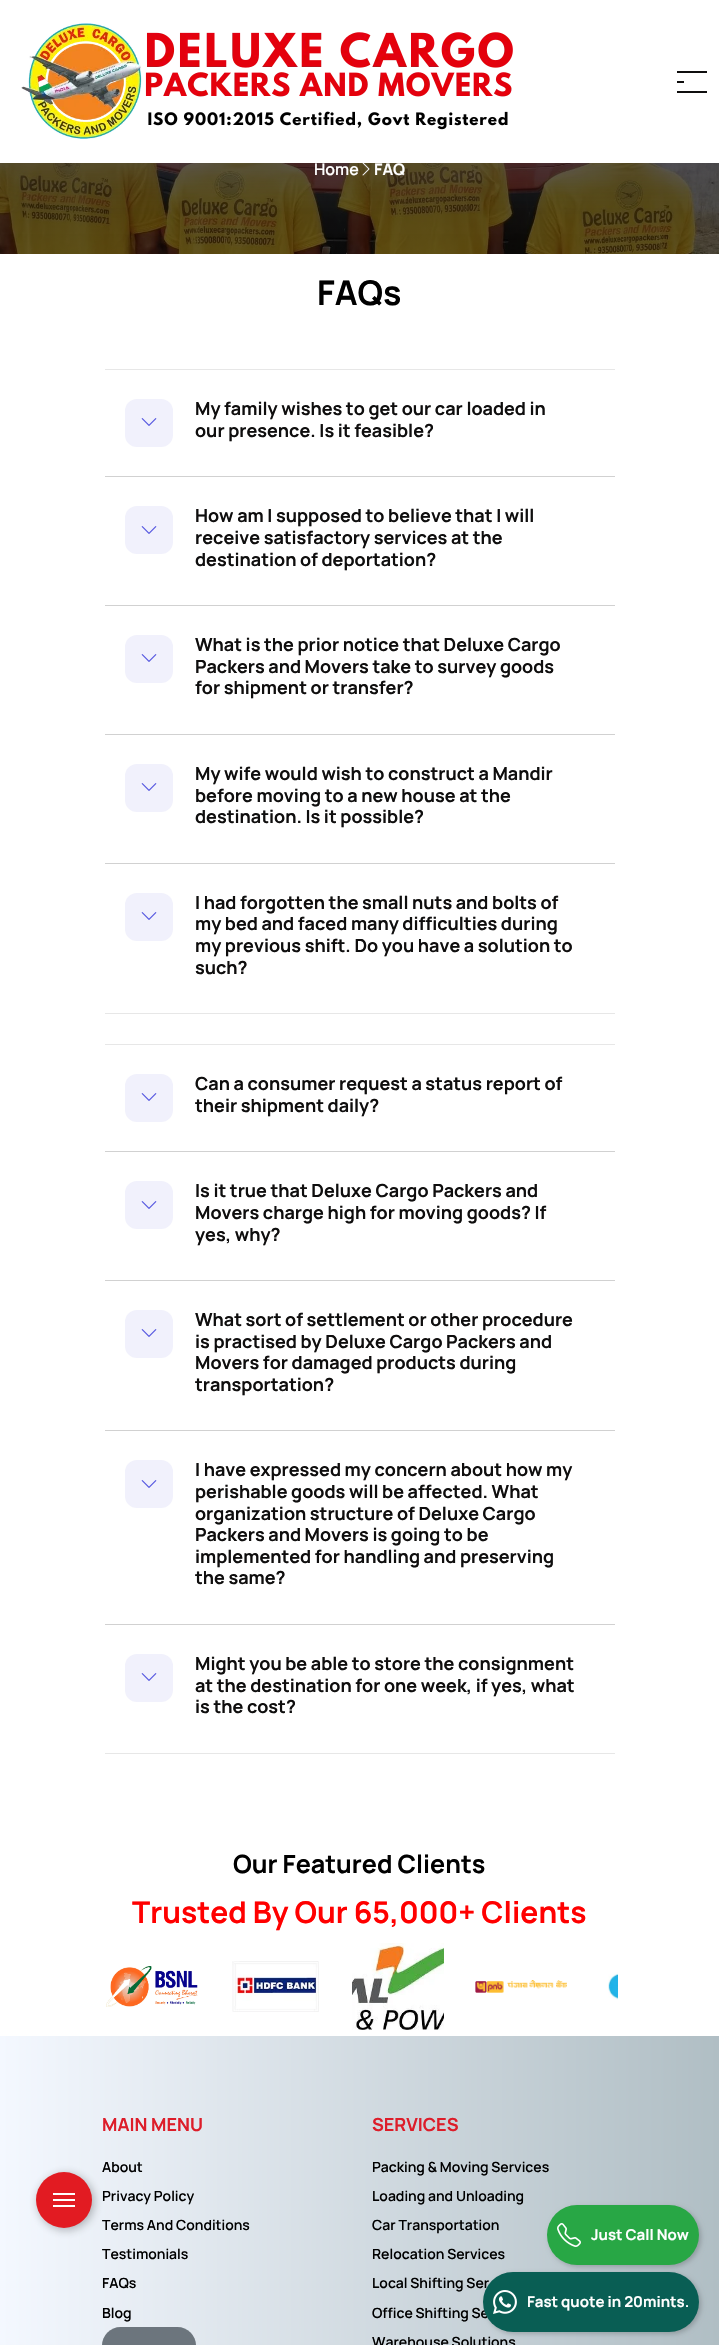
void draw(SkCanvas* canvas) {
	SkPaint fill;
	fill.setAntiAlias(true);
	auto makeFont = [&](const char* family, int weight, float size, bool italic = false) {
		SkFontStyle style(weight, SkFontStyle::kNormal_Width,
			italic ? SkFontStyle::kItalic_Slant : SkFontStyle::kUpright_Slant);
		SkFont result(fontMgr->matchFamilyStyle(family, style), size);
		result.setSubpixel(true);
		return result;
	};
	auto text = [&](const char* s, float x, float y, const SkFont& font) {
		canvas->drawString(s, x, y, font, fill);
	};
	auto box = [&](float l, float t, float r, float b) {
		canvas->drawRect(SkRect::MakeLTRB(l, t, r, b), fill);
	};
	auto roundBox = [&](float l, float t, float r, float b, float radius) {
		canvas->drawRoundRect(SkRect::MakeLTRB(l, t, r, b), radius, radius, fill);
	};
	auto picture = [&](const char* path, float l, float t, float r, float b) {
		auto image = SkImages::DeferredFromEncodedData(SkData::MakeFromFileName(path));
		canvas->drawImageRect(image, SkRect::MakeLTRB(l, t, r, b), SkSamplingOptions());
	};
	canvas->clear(0xFFFFFFFF);
	picture("image1.png", 0, 163, 719, 254);
	picture("image2.png", 362, 163, 370, 176);
	fill.setColor(0x26807BAD);
	fill.setMaskFilter(SkMaskFilter::MakeBlur(kNormal_SkBlurStyle, 19));
	canvas->drawRect(SkRect::MakeLTRB(-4, 6, 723, 177), fill);
	fill.setMaskFilter(nullptr);
	fill.setColor(0xFFFFFFFF);
	box(0, 0, 719, 163);
	picture("image0.png", 21, 23, 513, 139);
	fill.setColor(0xFF0F0E0E);
	box(677, 71, 707, 73);
	box(677, 81, 684, 83);
	box(677, 91, 707, 93);
	fill.setColor(0xFFE7E7E7);
	box(105, 369, 615, 370);
	fill.setColor(0xFFF1F1FC);
	roundBox(125, 399, 173, 447, 12);
	picture("image3.png", 141, 418, 157, 426);
	fill.setColor(0xFFD1D1D1);
	box(105, 476, 615, 477);
	fill.setColor(0xFFF1F1FC);
	roundBox(125, 506, 173, 554, 12);
	picture("image3.png", 141, 526, 157, 534);
	fill.setColor(0xFFD1D1D1);
	box(105, 605, 615, 606);
	fill.setColor(0xFFF1F1FC);
	roundBox(125, 635, 173, 683, 12);
	picture("image3.png", 141, 654, 157, 662);
	fill.setColor(0xFFD1D1D1);
	box(105, 734, 615, 735);
	fill.setColor(0xFFF1F1FC);
	roundBox(125, 764, 173, 812, 12);
	picture("image3.png", 141, 783, 157, 791);
	fill.setColor(0xFFD1D1D1);
	box(105, 863, 615, 864);
	fill.setColor(0xFFE7E7E7);
	box(105, 1013, 615, 1014);
	fill.setColor(0xFFF1F1FC);
	roundBox(125, 893, 173, 941, 12);
	picture("image3.png", 141, 912, 157, 920);
	fill.setColor(0xFFE7E7E7);
	box(105, 1044, 615, 1045);
	fill.setColor(0xFFF1F1FC);
	roundBox(125, 1074, 173, 1122, 12);
	picture("image3.png", 141, 1093, 157, 1101);
	fill.setColor(0xFFD1D1D1);
	box(105, 1151, 615, 1152);
	fill.setColor(0xFFF1F1FC);
	roundBox(125, 1181, 173, 1229, 12);
	picture("image3.png", 141, 1201, 157, 1209);
	fill.setColor(0xFFD1D1D1);
	box(105, 1280, 615, 1281);
	fill.setColor(0xFFF1F1FC);
	roundBox(125, 1310, 173, 1358, 12);
	picture("image3.png", 141, 1329, 157, 1337);
	fill.setColor(0xFFD1D1D1);
	box(105, 1430, 615, 1431);
	fill.setColor(0xFFF1F1FC);
	roundBox(125, 1460, 173, 1508, 12);
	picture("image3.png", 141, 1480, 157, 1488);
	fill.setColor(0xFFD1D1D1);
	box(105, 1624, 615, 1625);
	fill.setColor(0xFFE7E7E7);
	box(105, 1753, 615, 1754);
	fill.setColor(0xFFF1F1FC);
	roundBox(125, 1654, 173, 1702, 12);
	picture("image3.png", 141, 1673, 157, 1681);
	picture("image4.png", 106, 1966, 198, 2007);
	picture("image5.png", 232, 1961, 319, 2012);
	picture("image6.png", 352, 1943, 444, 2030);
	picture("image7.png", 475, 1980, 567, 1993);
	picture("image8.png", 608, 1972, 618, 2000);
	{
		const SkColor colors[] = {0xFFF4F8FF, 0xFFB0BEC4};
		const float stops[] = {0, 1};
		const SkPoint ends[] = {{0, 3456}, {719, 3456}};
		fill.setShader(SkGradientShader::MakeLinear(ends, colors, stops, 2, SkTileMode::kClamp));
		fill.setAlpha(255);
	}
	box(0, 2036, 719, 2345);
	fill.setShader(nullptr);
	fill.setColor(0x4D0A0A0A);
	fill.setMaskFilter(SkMaskFilter::MakeBlur(kNormal_SkBlurStyle, 5));
	canvas->drawRoundRect(SkRect::MakeLTRB(38, 2174, 94, 2230), 28, 28, fill);
	fill.setMaskFilter(nullptr);
	fill.setColor(0xFFE21B22);
	canvas->drawCircle(64, 2200, 28, fill);
	fill.setColor(0xFFFFFFFF);
	box(53, 2193, 75, 2195);
	box(53, 2199, 75, 2201);
	box(53, 2205, 75, 2207);
	fill.setColor(0xFF6C757D);
	roundBox(102, 2327, 196, 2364, 19);
	fill.setColor(0x33000000);
	fill.setMaskFilter(SkMaskFilter::MakeBlur(kNormal_SkBlurStyle, 2.5f));
	canvas->drawRoundRect(SkRect::MakeLTRB(549, 2207, 701, 2267), 30, 30, fill);
	fill.setMaskFilter(nullptr);
	fill.setColor(0xFF28A745);
	roundBox(547, 2205, 699, 2265, 30);
	picture("image9.png", 557, 2223, 581, 2247);
	fill.setColor(0x33000000);
	fill.setMaskFilter(SkMaskFilter::MakeBlur(kNormal_SkBlurStyle, 2.5f));
	canvas->drawRoundRect(SkRect::MakeLTRB(485, 2274, 701, 2334), 30, 30, fill);
	fill.setMaskFilter(nullptr);
	auto font1 = makeFont("Manrope", 600, 16);
	fill.setColor(0xFFFFFFFF);
	text("Home", 314, 175, font1);
	auto font2 = makeFont("Manrope", 700, 16);
	text("FAQ", 374, 175, font2);
	auto font3 = makeFont("Manrope", 700, 34);
	fill.setColor(0xFF000000);
	text("FAQs", 317, 305, font3);
	auto font4 = makeFont("Manrope", 700, 18);
	fill.setColor(0xFF0F0E0E);
	text("My family wishes to get our car loaded in", 195, 415, font4);
	text("our presence. Is it feasible?", 195, 437, font4);
	text("How am I supposed to believe that I will", 195, 522, font4);
	text("receive satisfactory services at the", 195, 544, font4);
	text("destination of deportation?", 195, 566, font4);
	text("What is the prior notice that Deluxe Cargo", 195, 651, font4);
	text("Packers and Movers take to survey goods", 195, 673, font4);
	text("for shipment or transfer?", 195, 694, font4);
	text("My wife would wish to construct a Mandir", 195, 780, font4);
	text("before moving to a new house at the", 195, 802, font4);
	text("destination. Is it possible?", 195, 823, font4);
	text("I had forgotten the small nuts and bolts of", 195, 909, font4);
	text("my bed and faced many difficulties during", 195, 930, font4);
	text("my previous shift. Do you have a solution to", 195, 952, font4);
	text("such?", 195, 974, font4);
	text("Can a consumer request a status report of", 195, 1090, font4);
	text("their shipment daily?", 195, 1112, font4);
	text("Is it true that Deluxe Cargo Packers and", 195, 1197, font4);
	text("Movers charge high for moving goods? If", 195, 1219, font4);
	text("yes, why?", 195, 1241, font4);
	text("What sort of settlement or other procedure", 195, 1326, font4);
	text("is practised by Deluxe Cargo Packers and", 195, 1348, font4);
	text("Movers for damaged products during", 195, 1369, font4);
	text("transportation?", 195, 1391, font4);
	text("I have expressed my concern about how my", 195, 1476, font4);
	text("perishable goods will be affected. What", 195, 1498, font4);
	text("organization structure of Deluxe Cargo", 195, 1520, font4);
	text("Packers and Movers is going to be", 195, 1541, font4);
	text("implemented for handling and preserving", 195, 1563, font4);
	text("the same?", 195, 1584, font4);
	text("Might you be able to store the consignment", 195, 1670, font4);
	text("at the destination for one week, if yes, what", 195, 1692, font4);
	text("is the cost?", 195, 1713, font4);
	auto font5 = makeFont("Manrope", 700, 25.1f);
	fill.setColor(0xFF000000);
	text("Our Featured Clients", 233, 1873, font5);
	auto font6 = makeFont("Manrope", 700, 30);
	fill.setColor(0xFFFF0000);
	text("Trusted By Our 65,000+ Clients", 132, 1923, font6);
	fill.setColor(0xFFDD1D2A);
	text("MAIN MENU", 102, 2131, font4);
	auto font7 = makeFont("Manrope", 600, 14);
	fill.setColor(0xFF000000);
	text("About", 102, 2172, font7);
	text("Privacy Policy", 102, 2201, font7);
	text("Terms And Conditions", 102, 2230, font7);
	text("Testimonials", 102, 2259, font7);
	text("FAQs", 102, 2288, font7);
	text("Blog", 102, 2318, font7);
	fill.setColor(0xFFDD1D2A);
	text("SERVICES", 372, 2131, font4);
	fill.setColor(0xFF000000);
	text("Packing & Moving Services", 372, 2172, font7);
	text("Loading and Unloading", 372, 2201, font7);
	text("Car Transportation", 372, 2230, font7);
	text("Relocation Services", 372, 2259, font7);
	text("Local Shifting Ser", 372, 2288, font7);
	text("Office Shifting Se", 372, 2318, font7);
	text("Warehouse Solutions", 372, 2347, font7);
	auto font8 = makeFont("Manrope", 700, 15);
	fill.setColor(0xFFFFFFFF);
	text("Just Call Now", 591, 2240, font8);
	fill.setColor(0xFF095E54);
	roundBox(483, 2272, 699, 2332, 30);
	picture("image10.png", 493, 2290, 517, 2314);
	fill.setColor(0xFFFFFFFF);
	text("Fast quote in 20mints.", 527, 2307, font8);
}
